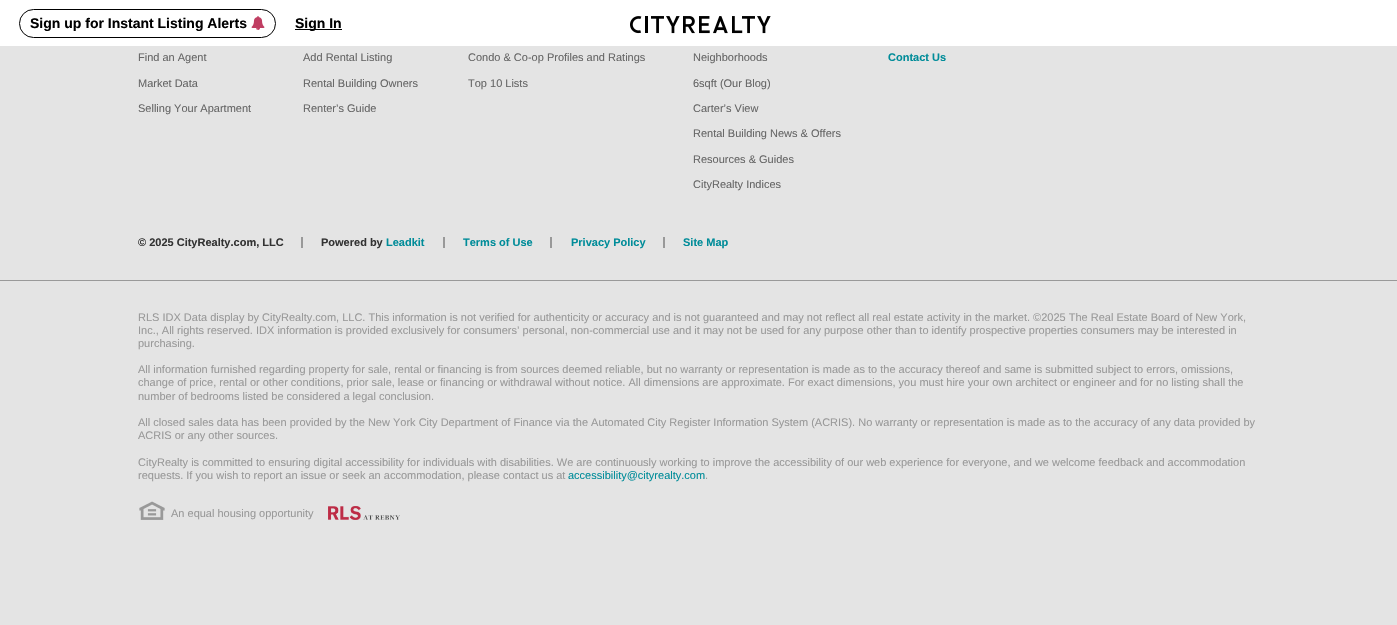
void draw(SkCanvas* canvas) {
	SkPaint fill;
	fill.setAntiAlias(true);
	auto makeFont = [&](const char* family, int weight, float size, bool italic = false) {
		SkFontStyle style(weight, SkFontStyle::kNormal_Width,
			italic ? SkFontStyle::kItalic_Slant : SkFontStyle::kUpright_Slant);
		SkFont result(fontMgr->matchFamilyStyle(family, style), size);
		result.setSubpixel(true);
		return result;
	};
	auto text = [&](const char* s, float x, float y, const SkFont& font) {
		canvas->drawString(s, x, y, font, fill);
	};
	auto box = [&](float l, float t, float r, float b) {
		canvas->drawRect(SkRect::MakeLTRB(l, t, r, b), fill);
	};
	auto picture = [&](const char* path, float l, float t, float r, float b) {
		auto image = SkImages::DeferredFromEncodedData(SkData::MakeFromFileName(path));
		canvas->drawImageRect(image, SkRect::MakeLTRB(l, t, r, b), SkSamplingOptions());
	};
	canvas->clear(0xFFE4E4E4);
	fill.setColor(0xFFFFFFFF);
	box(0, 0, 1397, 46);
	fill.setStyle(SkPaint::kStroke_Style);
	fill.setStrokeWidth(1);
	fill.setColor(0xFF000000);
	canvas->drawRoundRect(SkRect::MakeLTRB(19.5f, 9.5f, 275.5f, 37.5f), 14, 14, fill);
	picture("image0.png", 251, 16, 265, 30);
	fill.setStyle(SkPaint::kFill_Style);
	box(295, 29, 342, 30);
	picture("image1.png", 630, 16, 642, 34);
	box(645, 16, 648, 33);
	picture("image2.png", 651, 16, 664, 34);
	picture("image3.png", 666, 16, 680, 34);
	picture("image4.png", 683, 16, 695, 34);
	picture("image5.png", 699, 16, 710, 34);
	picture("image6.png", 713, 16, 728, 34);
	picture("image7.png", 732, 16, 743, 34);
	picture("image8.png", 742, 16, 755, 34);
	picture("image3.png", 757, 16, 771, 34);
	fill.setColor(0xFF999999);
	box(301, 237, 303, 248);
	box(443, 237, 445, 248);
	box(550, 237, 552, 248);
	box(663, 237, 665, 248);
	box(0, 280, 1397, 281);
	picture("image9.png", 139, 501, 165, 520);
	picture("image10.png", 328, 506, 400, 520);
	auto font1 = makeFont("Liberation Sans", 700, 14);
	fill.setColor(0xFF000000);
	text("Sign up for Instant Listing Alerts", 30, 28, font1);
	text("Sign In", 295, 28, font1);
	auto font2 = makeFont("Liberation Sans", 400, 11);
	fill.setColor(0xFF666666);
	text("Find an Agent", 138, 61, font2);
	text("Market Data", 138, 87, font2);
	text("Selling Your Apartment", 138, 112, font2);
	text("Add Rental Listing", 303, 61, font2);
	text("Rental Building Owners", 303, 87, font2);
	text("Renter’s Guide", 303, 112, font2);
	text("Condo & Co-op Profiles and Ratings", 468, 61, font2);
	text("Top 10 Lists", 468, 87, font2);
	text("Neighborhoods", 693, 61, font2);
	text("6sqft (Our Blog)", 693, 87, font2);
	text("Carter’s View", 693, 112, font2);
	text("Rental Building News & Offers", 693, 137, font2);
	text("Resources & Guides", 693, 163, font2);
	text("CityRealty Indices", 693, 188, font2);
	auto font3 = makeFont("Liberation Sans", 700, 11);
	fill.setColor(0xFF008C99);
	text("Contact Us", 888, 61, font3);
	fill.setColor(0xFF333333);
	text("© 2025 CityRealty.com, LLC", 138, 246, font3);
	text("Powered by", 321, 246, font3);
	fill.setColor(0xFF008C99);
	text("Leadkit", 386, 246, font3);
	text("Terms of Use", 463, 246, font3);
	text("Privacy Policy", 571, 246, font3);
	text("Site Map", 683, 246, font3);
	fill.setColor(0xFF999999);
	text("RLS IDX Data display by CityRealty.com, LLC. This information is not verified for authenticity or accuracy and is not guaranteed and may not reflect all real estate activity in the market. ©2025 The Real Estate Board of New York,", 138, 321, font2);
	text("Inc., All rights reserved. IDX information is provided exclusively for consumers’ personal, non-commercial use and it may not be used for any purpose other than to identify prospective properties consumers may be interested in", 138, 334, font2);
	text("purchasing.", 138, 347, font2);
	text("All information furnished regarding property for sale, rental or financing is from sources deemed reliable, but no warranty or representation is made as to the accuracy thereof and same is submitted subject to errors, omissions,", 138, 373, font2);
	text("change of price, rental or other conditions, prior sale, lease or financing or withdrawal without notice. All dimensions are approximate. For exact dimensions, you must hire your own architect or engineer and for no listing shall the", 138, 386, font2);
	text("number of bedrooms listed be considered a legal conclusion.", 138, 400, font2);
	text("All closed sales data has been provided by the New York City Department of Finance via the Automated City Register Information System (ACRIS). No warranty or representation is made as to the accuracy of any data provided by", 138, 426, font2);
	text("ACRIS or any other sources.", 138, 439, font2);
	text("CityRealty is committed to ensuring digital accessibility for individuals with disabilities. We are continuously working to improve the accessibility of our web experience for everyone, and we welcome feedback and accommodation", 138, 466, font2);
	text("requests. If you wish to report an issue or seek an accommodation, please contact us at", 138, 479, font2);
	fill.setColor(0xFF008C99);
	text("accessibility@cityrealty.com", 568, 479, font2);
	fill.setColor(0xFF999999);
	text(".", 705, 479, font2);
	text("An equal housing opportunity", 171, 517, font2);
}
